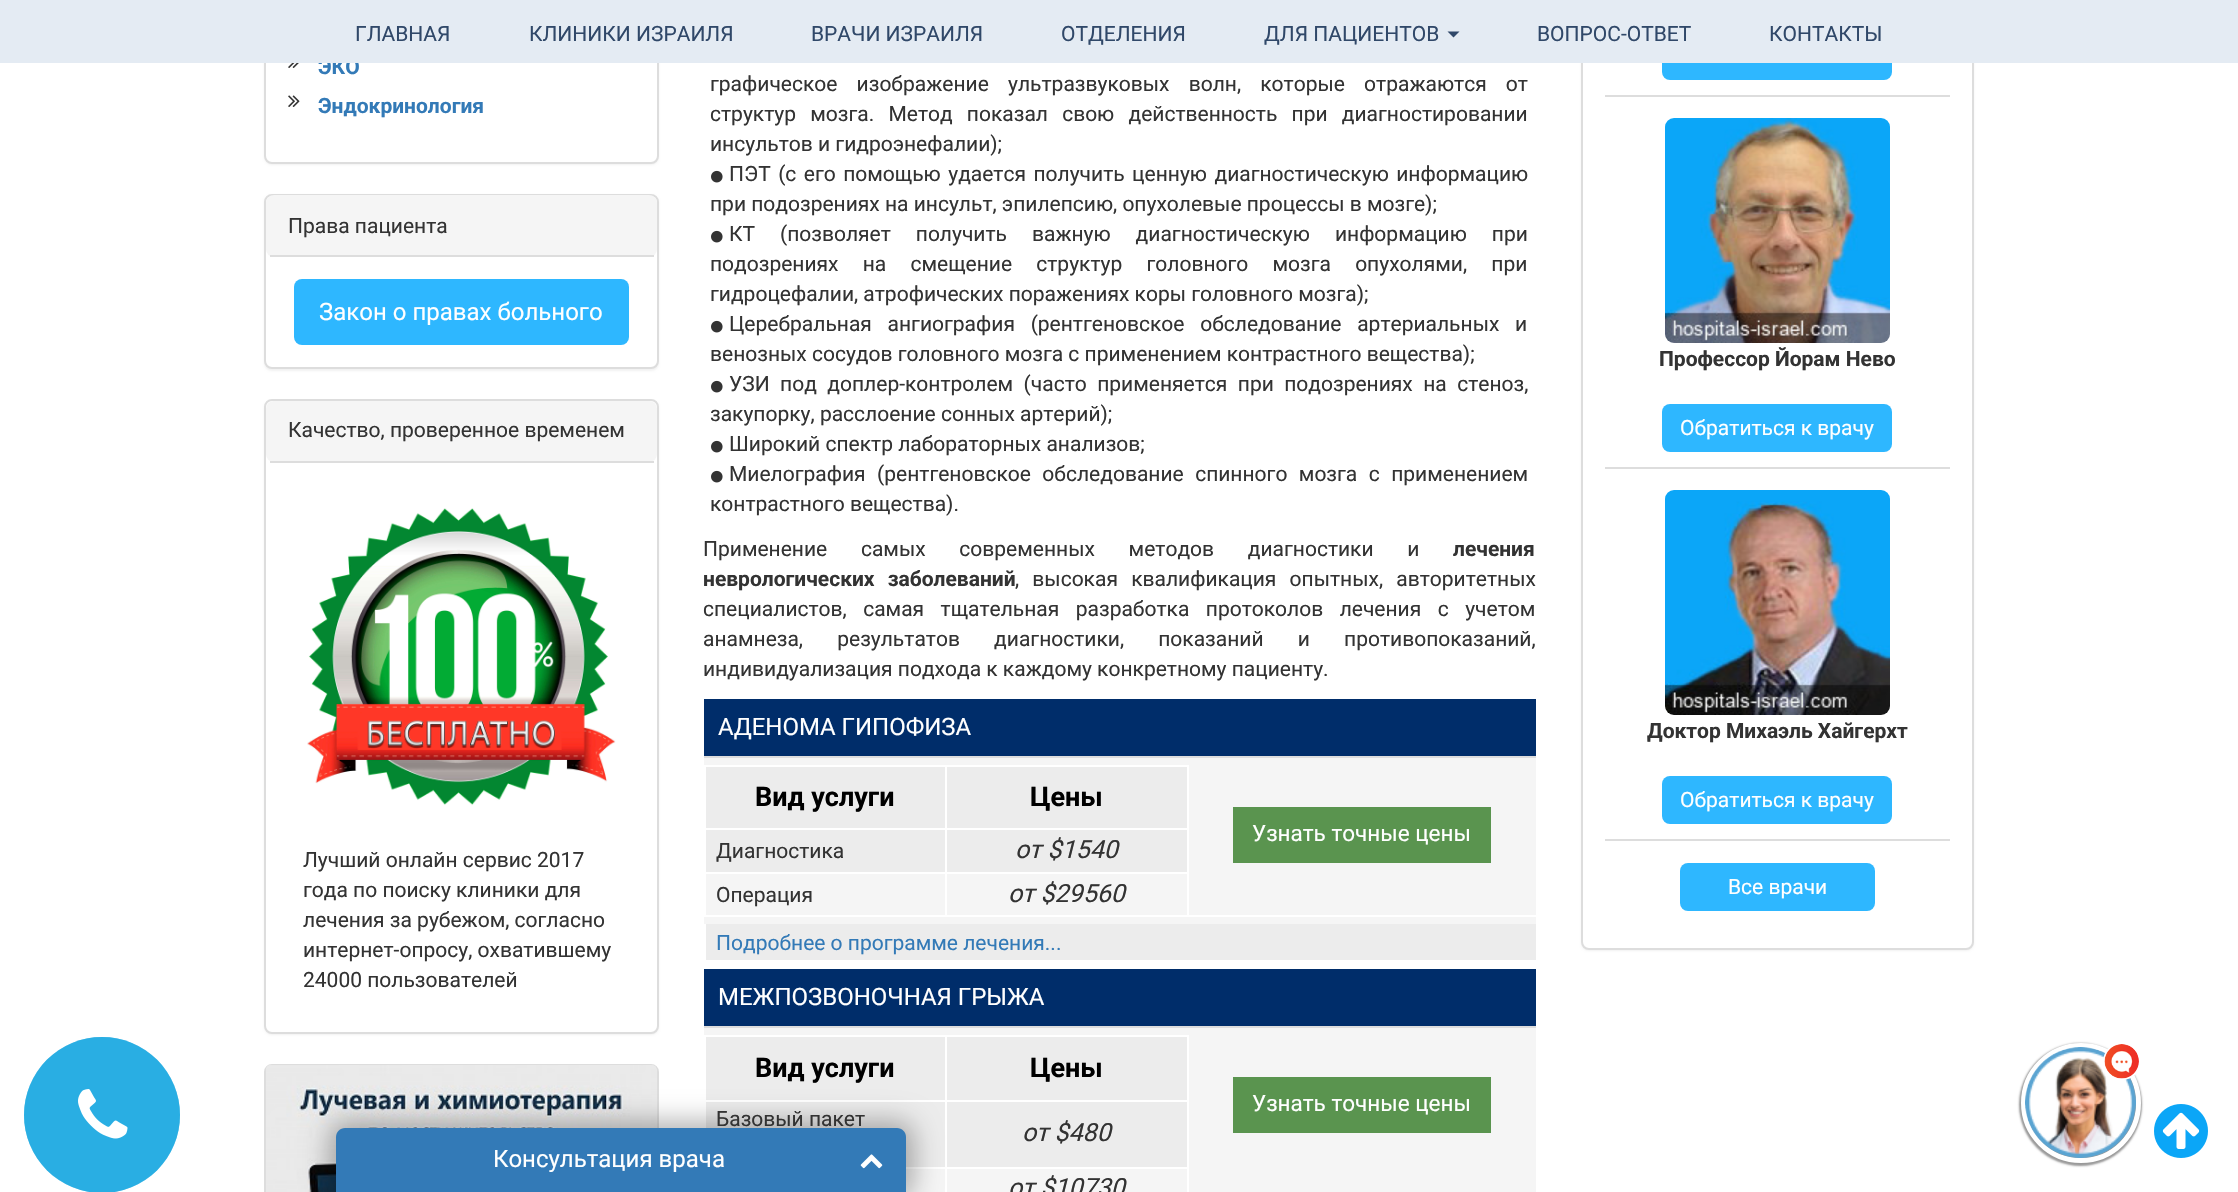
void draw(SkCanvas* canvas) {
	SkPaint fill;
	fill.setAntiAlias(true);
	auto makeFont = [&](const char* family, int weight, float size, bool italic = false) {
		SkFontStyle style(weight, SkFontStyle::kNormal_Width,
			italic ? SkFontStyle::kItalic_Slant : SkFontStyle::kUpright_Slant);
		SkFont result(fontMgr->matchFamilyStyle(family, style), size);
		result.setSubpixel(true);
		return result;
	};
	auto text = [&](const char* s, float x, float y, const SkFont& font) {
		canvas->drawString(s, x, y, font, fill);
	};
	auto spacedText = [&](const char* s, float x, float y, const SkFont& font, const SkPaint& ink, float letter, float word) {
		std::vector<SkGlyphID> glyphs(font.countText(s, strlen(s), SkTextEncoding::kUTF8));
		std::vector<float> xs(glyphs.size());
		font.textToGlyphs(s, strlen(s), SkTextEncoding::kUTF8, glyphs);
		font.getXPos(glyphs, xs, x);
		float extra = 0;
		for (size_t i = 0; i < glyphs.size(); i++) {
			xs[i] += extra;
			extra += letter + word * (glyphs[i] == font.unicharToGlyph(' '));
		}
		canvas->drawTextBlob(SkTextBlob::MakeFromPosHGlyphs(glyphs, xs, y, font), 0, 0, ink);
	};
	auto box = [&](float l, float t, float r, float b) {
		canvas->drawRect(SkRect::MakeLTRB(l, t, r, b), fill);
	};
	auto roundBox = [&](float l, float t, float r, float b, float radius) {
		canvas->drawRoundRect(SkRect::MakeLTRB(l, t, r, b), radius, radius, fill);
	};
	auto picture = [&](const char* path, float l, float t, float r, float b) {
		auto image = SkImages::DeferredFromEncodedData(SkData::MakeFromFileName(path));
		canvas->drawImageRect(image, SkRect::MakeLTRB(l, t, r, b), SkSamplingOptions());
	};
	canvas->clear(0xFFFFFFFF);
	fill.setStyle(SkPaint::kStroke_Style);
	fill.setStrokeWidth(3);
	fill.setColor(0xFF94D7F1);
	canvas->drawCircle(102, 1115, 76.5f, fill);
	fill.setStyle(SkPaint::kFill_Style);
	fill.setColor(0xFF29AEE3);
	canvas->drawCircle(102, 1115, 78, fill);
	picture("image0.png", 78, 1089, 128, 1139);
	fill.setColor(0x0D000000);
	fill.setMaskFilter(SkMaskFilter::MakeBlur(kNormal_SkBlurStyle, 1));
	canvas->drawRoundRect(SkRect::MakeLTRB(264, -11, 659, 165), 8, 8, fill);
	fill.setMaskFilter(nullptr);
	fill.setColor(0xFFFFFFFF);
	canvas->drawRoundRect(SkRect::MakeLTRB(265, -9, 658, 163), 7, 7, fill);
	fill.setStyle(SkPaint::kStroke_Style);
	fill.setStrokeWidth(2);
	fill.setColor(0xFFDDDDDD);
	canvas->drawRoundRect(SkRect::MakeLTRB(265, -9, 658, 163), 7, 7, fill);
	picture("image1.png", 288, 63, 299, 68);
	picture("image2.png", 288, 95, 300, 107);
	fill.setStyle(SkPaint::kFill_Style);
	fill.setColor(0x0D000000);
	fill.setMaskFilter(SkMaskFilter::MakeBlur(kNormal_SkBlurStyle, 1));
	canvas->drawRoundRect(SkRect::MakeLTRB(264, 195, 659, 371), 8, 8, fill);
	fill.setMaskFilter(nullptr);
	fill.setColor(0xFFFFFFFF);
	canvas->drawRoundRect(SkRect::MakeLTRB(265, 195, 658, 368), 7, 7, fill);
	fill.setStyle(SkPaint::kStroke_Style);
	fill.setColor(0xFFDDDDDD);
	canvas->drawRoundRect(SkRect::MakeLTRB(265, 195, 658, 368), 7, 7, fill);
	fill.setStyle(SkPaint::kFill_Style);
	fill.setColor(0xFFF5F5F5);
	roundBox(266, 195, 657, 257, 8);
	fill.setColor(0xFFDDDDDD);
	box(270, 255, 654, 257);
	fill.setColor(0xFF2EB7FF);
	roundBox(294, 279, 629, 345, 8);
	fill.setColor(0x0D000000);
	fill.setMaskFilter(SkMaskFilter::MakeBlur(kNormal_SkBlurStyle, 1));
	canvas->drawRoundRect(SkRect::MakeLTRB(264, 401, 659, 1035), 8, 8, fill);
	fill.setMaskFilter(nullptr);
	fill.setColor(0xFFFFFFFF);
	canvas->drawRoundRect(SkRect::MakeLTRB(265, 400, 658, 1033), 7, 7, fill);
	fill.setStyle(SkPaint::kStroke_Style);
	fill.setColor(0xFFDDDDDD);
	canvas->drawRoundRect(SkRect::MakeLTRB(265, 400, 658, 1033), 7, 7, fill);
	fill.setStyle(SkPaint::kFill_Style);
	fill.setColor(0xFFF5F5F5);
	roundBox(266, 401, 657, 462, 8);
	fill.setColor(0xFFDDDDDD);
	box(270, 461, 654, 463);
	picture("image3.png", 307, 508, 616, 806);
	fill.setStyle(SkPaint::kStroke_Style);
	canvas->drawRoundRect(SkRect::MakeLTRB(265, 1065, 658, 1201), 7, 7, fill);
	picture("image4.png", 266, 1065, 657, 1192);
	fill.setStyle(SkPaint::kFill_Style);
	fill.setColor(0xFFF5F5F5);
	box(704, 1028, 1536, 1192);
	fill.setColor(0xFFECECEC);
	box(706, 1037, 1187, 1100);
	fill.setColor(0xFFFFFFFF);
	box(945, 1035, 1188, 1037);
	box(945, 1100, 1188, 1102);
	fill.setColor(0xFFECECEC);
	box(706, 1102, 1187, 1167);
	fill.setColor(0xFFFFFFFF);
	box(945, 1167, 1188, 1169);
	box(945, 1167, 947, 1192);
	box(906, 1167, 947, 1169);
	box(945, 1100, 947, 1169);
	box(704, 1100, 947, 1102);
	box(945, 1035, 947, 1101);
	box(704, 1035, 947, 1037);
	box(704, 1100, 706, 1128);
	box(704, 1035, 706, 1101);
	fill.setColor(0x4D000000);
	fill.setMaskFilter(SkMaskFilter::MakeBlur(kNormal_SkBlurStyle, 13.5f));
	canvas->drawRoundRect(SkRect::MakeLTRB(329, 1121, 914, 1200), 17, 17, fill);
	fill.setMaskFilter(nullptr);
	fill.setColor(0xFF337AB7);
	canvas->drawPath(SkPathBuilder().moveTo(345, 1128).lineTo(897, 1128).cubicTo(902, 1128, 906, 1132, 906, 1137).lineTo(906, 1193).lineTo(336, 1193).lineTo(336, 1137).cubicTo(336, 1132, 340, 1128, 345, 1128).close().detach(), fill);
	picture("image5.png", 860, 1154, 883, 1169);
	picture("image6.png", 711, 170, 723, 183);
	picture("image6.png", 711, 230, 723, 243);
	picture("image6.png", 711, 320, 723, 333);
	picture("image6.png", 711, 380, 723, 393);
	picture("image6.png", 711, 440, 723, 453);
	picture("image6.png", 711, 470, 723, 483);
	fill.setColor(0xFF002D6A);
	box(704, 699, 1536, 756);
	fill.setColor(0xFFF5F5F5);
	box(704, 758, 1536, 924);
	fill.setColor(0xFFDDDDDD);
	box(704, 756, 1536, 758);
	fill.setColor(0xFFECECEC);
	box(706, 767, 1187, 828);
	fill.setColor(0xFFFFFFFF);
	box(945, 765, 1188, 767);
	box(945, 828, 1188, 830);
	fill.setColor(0xFFECECEC);
	box(706, 830, 1187, 872);
	fill.setColor(0xFFFFFFFF);
	box(945, 872, 1188, 874);
	box(1187, 872, 1189, 917);
	box(945, 915, 1536, 917);
	box(945, 872, 947, 917);
	box(704, 872, 947, 874);
	box(945, 828, 947, 873);
	box(704, 828, 947, 830);
	box(945, 765, 947, 830);
	box(704, 765, 947, 767);
	box(704, 915, 947, 917);
	box(704, 872, 706, 917);
	box(704, 828, 706, 873);
	box(704, 765, 706, 830);
	box(1187, 828, 1189, 873);
	box(1187, 765, 1189, 830);
	fill.setColor(0xFF5A944F);
	box(1233, 807, 1491, 863);
	fill.setColor(0xFFECECEC);
	box(706, 924, 1536, 960);
	fill.setColor(0xFF002D6A);
	box(704, 969, 1536, 1026);
	fill.setColor(0xFFDDDDDD);
	box(704, 1026, 1536, 1028);
	fill.setColor(0xFFFFFFFF);
	box(1187, 1167, 1189, 1192);
	box(1187, 1100, 1189, 1169);
	box(1187, 1035, 1189, 1101);
	fill.setColor(0xFF5A944F);
	box(1233, 1077, 1491, 1133);
	fill.setColor(0x0D000000);
	fill.setMaskFilter(SkMaskFilter::MakeBlur(kNormal_SkBlurStyle, 1));
	canvas->drawRoundRect(SkRect::MakeLTRB(1581, -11, 1974, 951), 8, 8, fill);
	fill.setMaskFilter(nullptr);
	fill.setColor(0xFFFFFFFF);
	canvas->drawRoundRect(SkRect::MakeLTRB(1582, -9, 1973, 949), 7, 7, fill);
	fill.setStyle(SkPaint::kStroke_Style);
	fill.setColor(0xFFDDDDDD);
	canvas->drawRoundRect(SkRect::MakeLTRB(1582, -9, 1973, 949), 7, 7, fill);
	fill.setStyle(SkPaint::kFill_Style);
	box(1605, 95, 1950, 97);
	fill.setColor(0xFF2EB7FF);
	roundBox(1662, 32, 1892, 80, 8);
	fill.setColor(0xFFDDDDDD);
	box(1605, 467, 1950, 469);
	picture("image7.png", 1665, 118, 1890, 343);
	fill.setColor(0xFF2EB7FF);
	roundBox(1662, 404, 1892, 452, 8);
	fill.setColor(0xFFDDDDDD);
	box(1605, 839, 1950, 841);
	picture("image8.png", 1665, 490, 1890, 715);
	fill.setColor(0xFF2EB7FF);
	roundBox(1662, 776, 1892, 824, 8);
	roundBox(1680, 863, 1875, 911, 8);
	fill.setColor(0x66000000);
	fill.setMaskFilter(SkMaskFilter::MakeBlur(kNormal_SkBlurStyle, 1));
	canvas->drawRoundRect(SkRect::MakeLTRB(2019, 1043, 2142, 1166), 61.5f, 61.5f, fill);
	fill.setMaskFilter(nullptr);
	fill.setStyle(SkPaint::kStroke_Style);
	fill.setStrokeWidth(5);
	fill.setColor(0xFFFFFFFF);
	canvas->drawCircle(2081, 1103, 57.5f, fill);
	picture("image9.png", 2025, 1047, 2136, 1158);
	fill.setStyle(SkPaint::kFill_Style);
	canvas->drawRoundRect(SkRect::MakeLTRB(2104, 1044, 2140, 1079), 17.5f, 17.5f, fill);
	fill.setStyle(SkPaint::kStroke_Style);
	fill.setStrokeWidth(2);
	canvas->drawRoundRect(SkRect::MakeLTRB(2104, 1044, 2140, 1079), 17.5f, 17.5f, fill);
	picture("image10.png", 2104, 1044, 2139, 1079);
	picture("image11.png", 2154, 1104, 2208, 1158);
	auto font1 = makeFont("Roboto", 700, 21);
	fill.setStyle(SkPaint::kFill_Style);
	fill.setColor(0xFF337AB7);
	text("ЭКО", 318, 74, font1);
	fill.setColor(0xFFE4EBF3);
	box(0, 0, 2238, 63);
	auto font2 = makeFont("Roboto", 400, 21);
	fill.setColor(0xFF304869);
	text("КОНТАКТЫ", 1769, 41, font2);
	text("ВОПРОС-ОТВЕТ", 1537, 41, font2);
	canvas->drawPath(SkPathBuilder().moveTo(1447.5f, 31.5f).lineTo(1459.5f, 31.5f).lineTo(1453.5f, 37.5f).close().detach(), fill);
	text("ДЛЯ ПАЦИЕНТОВ", 1264, 41, font2);
	text("ОТДЕЛЕНИЯ", 1061, 41, font2);
	text("ВРАЧИ ИЗРАИЛЯ", 811, 41, font2);
	text("КЛИНИКИ ИЗРАИЛЯ", 529, 41, font2);
	text("ГЛАВНАЯ", 355, 41, font2);
	fill.setColor(0xFF337AB7);
	text("Эндокринология", 318, 113, font1);
	fill.setColor(0xFF333333);
	text("Права пациента", 288, 233, font2);
	auto font3 = makeFont("Roboto", 400, 24);
	fill.setColor(0xFFFFFFFF);
	text("Закон о правах больного", 319, 320, font3);
	fill.setColor(0xFF333333);
	text("Качество, проверенное временем", 288, 437, font2);
	text("Лучший онлайн сервис 2017", 303, 867, font2);
	text("года по поиску клиники для", 303, 897, font2);
	text("лечения за рубежом, согласно", 303, 927, font2);
	text("интернет-опросу, охватившему", 303, 957, font2);
	text("24000 пользователей", 303, 987, font2);
	fill.setColor(0xFFFFFFFF);
	text("Консультация врача", 493, 1167, font3);
	fill.setColor(0xFF333333);
	spacedText("графическое изображение ультразвуковых волн, которые отражаются от", 710, 91, font2, fill, 0, 14);
	spacedText("структур мозга. Метод показал свою действенность при диагностировании", 710, 121, font2, fill, 0, 9);
	text("инсультов и гидроэнефалии);", 710, 151, font2);
	spacedText("ПЭТ (с его помощью удается получить ценную диагностическую информацию", 729, 181, font2, fill, 0, 2.25f);
	text("при подозрениях на инсульт, эпилепсию, опухолевые процессы в мозге);", 710, 211, font2);
	spacedText("КТ (позволяет получить важную диагностическую информацию при", 729, 241, font2, fill, 0, 19.75f);
	spacedText("подозрениях на смещение структур головного мозга опухолями, при", 710, 271, font2, fill, 0, 19);
	text("гидроцефалии, атрофических поражениях коры головного мозга);", 710, 301, font2);
	spacedText("Церебральная ангиография (рентгеновское обследование артериальных и", 729, 331, font2, fill, 0, 10.5f);
	text("венозных сосудов головного мозга с применением контрастного вещества);", 710, 361, font2);
	spacedText("УЗИ под доплер-контролем (часто применяется при подозрениях на стеноз,", 729, 391, font2, fill, 0, 5.25f);
	text("закупорку, расслоение сонных артерий);", 710, 421, font2);
	text("Широкий спектр лабораторных анализов;", 729, 451, font2);
	spacedText("Миелография (рентгеновское обследование спинного мозга с применением", 729, 481, font2, fill, 0, 6.25f);
	text("контрастного вещества).", 710, 511, font2);
	spacedText("Применение самых современных методов диагностики и", 703, 556, font2, fill, 0, 28.5f);
	text("лечения", 1453, 556, font1);
	spacedText("неврологических заболеваний", 703, 586, font1, fill, 0, 8);
	spacedText(", высокая квалификация опытных, авторитетных", 1015, 586, font2, fill, 0, 8);
	spacedText("специалистов, самая тщательная разработка протоколов лечения с учетом", 703, 616, font2, fill, 0, 11.25f);
	spacedText("анамнеза, результатов диагностики, показаний и противопоказаний,", 703, 646, font2, fill, 0, 29);
	text("индивидуализация подхода к каждому конкретному пациенту.", 703, 676, font2);
	fill.setColor(0xFFFFFFFF);
	text("АДЕНОМА ГИПОФИЗА", 718, 735, font3);
	auto font4 = makeFont("Roboto", 700, 27);
	fill.setColor(0xFF000000);
	text("Вид услуги", 755, 806, font4);
	text("Цены", 1030, 806, font4);
	fill.setColor(0xFF333333);
	text("Диагностика", 716, 858, font2);
	auto font5 = makeFont("Roboto", 400, 25, true);
	text("от $1540", 1015, 858, font5);
	text("Операция", 716, 902, font2);
	text("от $29560", 1008, 902, font5);
	auto font6 = makeFont("Roboto", 400, 22.5f);
	fill.setColor(0xFFFFFFFF);
	text("Узнать точные цены", 1252, 841, font6);
	fill.setColor(0xFF337AB7);
	text("Подробнее о программе лечения...", 716, 950, font2);
	fill.setColor(0xFFFFFFFF);
	text("МЕЖПОЗВОНОЧНАЯ ГРЫЖА", 718, 1005, font3);
	fill.setColor(0xFF000000);
	text("Вид услуги", 755, 1077, font4);
	text("Цены", 1030, 1077, font4);
	fill.setColor(0xFF333333);
	text("Базовый пакет", 716, 1126, font2);
	text("от $480", 1022, 1141, font5);
	text("от $10730", 1008, 1196, font5);
	fill.setColor(0xFFFFFFFF);
	text("Узнать точные цены", 1252, 1111, font6);
	fill.setColor(0xFF333333);
	text("Профессор Йорам Нево", 1659, 366, font1);
	fill.setColor(0xFFFFFFFF);
	text("Обратиться к врачу", 1680, 435, font2);
	fill.setColor(0xFF333333);
	text("Доктор Михаэль Хайгерхт", 1647, 738, font1);
	fill.setColor(0xFFFFFFFF);
	text("Обратиться к врачу", 1680, 807, font2);
	text("Все врачи", 1728, 894, font2);
}
